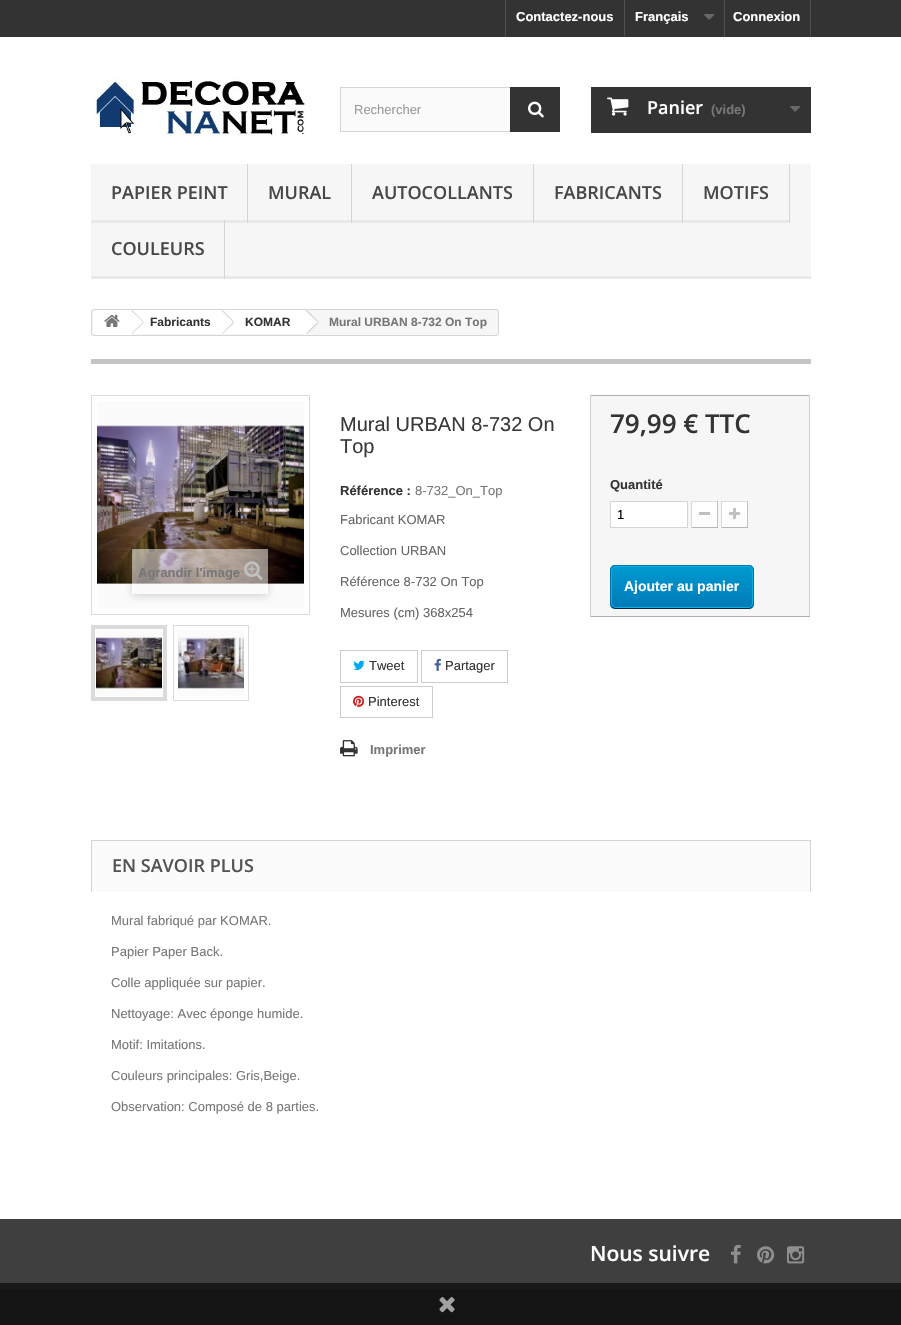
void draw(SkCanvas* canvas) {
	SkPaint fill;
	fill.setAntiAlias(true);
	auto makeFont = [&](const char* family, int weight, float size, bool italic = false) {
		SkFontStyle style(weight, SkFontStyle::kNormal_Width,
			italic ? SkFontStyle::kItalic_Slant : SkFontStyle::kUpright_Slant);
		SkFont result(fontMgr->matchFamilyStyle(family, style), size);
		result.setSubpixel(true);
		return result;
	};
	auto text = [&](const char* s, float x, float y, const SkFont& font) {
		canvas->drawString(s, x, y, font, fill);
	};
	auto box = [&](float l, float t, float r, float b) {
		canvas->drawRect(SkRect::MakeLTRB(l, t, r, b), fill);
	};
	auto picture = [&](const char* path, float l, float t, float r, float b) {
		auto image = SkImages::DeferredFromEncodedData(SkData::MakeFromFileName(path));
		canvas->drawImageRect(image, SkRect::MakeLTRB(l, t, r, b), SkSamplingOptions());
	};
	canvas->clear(0xFFFFFFFF);
	fill.setColor(0xFF333333);
	box(0, 0, 901, 37);
	fill.setColor(0xFF515151);
	box(505, 0, 506, 37);
	box(624, 0, 625, 36);
	picture("image0.png", 704, 14, 715, 20);
	box(810, 0, 811, 37);
	box(724, 0, 725, 37);
	picture("image1.png", 91, 77, 306, 137);
	fill.setColor(0xFFFBFBFB);
	box(341, 88, 510, 131);
	fill.setStyle(SkPaint::kStroke_Style);
	fill.setStrokeWidth(1);
	fill.setColor(0xFFD6D4D4);
	canvas->drawRect(SkRect::MakeLTRB(340.5f, 87.5f, 559.5f, 131.5f), fill);
	fill.setStyle(SkPaint::kFill_Style);
	fill.setColor(0xFF333333);
	box(510, 87, 560, 132);
	picture("image2.png", 528, 101, 544, 118);
	box(591, 87, 811, 133);
	picture("image3.png", 607, 97, 629, 116);
	picture("image0.png", 790, 106, 801, 112);
	fill.setColor(0xFFF6F6F6);
	box(91, 164, 811, 276);
	fill.setColor(0xFFE9E9E9);
	box(91, 276, 811, 279);
	fill.setColor(0xFFD6D4D4);
	box(247, 164, 248, 223);
	fill.setColor(0xFFE9E9E9);
	box(91, 220, 247, 223);
	fill.setColor(0xFFD6D4D4);
	box(351, 164, 352, 223);
	fill.setColor(0xFFE9E9E9);
	box(248, 220, 351, 223);
	fill.setColor(0xFFD6D4D4);
	box(533, 164, 534, 223);
	fill.setColor(0xFFE9E9E9);
	box(352, 220, 533, 223);
	fill.setColor(0xFFD6D4D4);
	box(682, 164, 683, 223);
	fill.setColor(0xFFE9E9E9);
	box(534, 220, 682, 223);
	fill.setColor(0xFFD6D4D4);
	box(789, 164, 790, 223);
	fill.setColor(0xFFE9E9E9);
	box(683, 220, 789, 223);
	fill.setColor(0xFFD6D4D4);
	box(224, 220, 225, 279);
	fill.setColor(0xFFF6F6F6);
	canvas->drawRoundRect(SkRect::MakeLTRB(91.5f, 309.5f, 498.5f, 335.5f), 2.5f, 2.5f, fill);
	fill.setStyle(SkPaint::kStroke_Style);
	fill.setColor(0xFFD6D4D4);
	canvas->drawRoundRect(SkRect::MakeLTRB(91.5f, 309.5f, 498.5f, 335.5f), 2.5f, 2.5f, fill);
	fill.setStyle(SkPaint::kFill_Style);
	fill.setColor(0xFFFFFFFF);
	canvas->drawPath(SkPathBuilder().moveTo(96, 310).lineTo(131, 310).lineTo(131, 335).lineTo(96, 335).cubicTo(94.5f, 335, 93, 333.5f, 93, 332).lineTo(93, 313).cubicTo(93, 311.5f, 94.5f, 310, 96, 310).close().detach(), fill);
	picture("image4.png", 104, 314, 120, 327);
	box(131, 310, 223, 334);
	fill.setColor(0xFFD6D4D4);
	canvas->drawPath(SkPathBuilder().moveTo(132, 310).lineTo(143.5f, 321.5f).lineTo(143, 322).lineTo(131.5f, 311).close().moveTo(143, 322).lineTo(143.5f, 323).lineTo(132, 334).lineTo(131.5f, 333.5f).close().detach(), fill);
	fill.setColor(0xFFFFFFFF);
	canvas->drawPath(SkPathBuilder().moveTo(228, 311).lineTo(238, 321).cubicTo(238.5f, 321.5f, 238.5f, 323, 238, 323.5f).lineTo(228, 333.5f).cubicTo(227, 334.5f, 226, 334.5f, 225, 333.5f).lineTo(215, 323.5f).cubicTo(214.5f, 323, 214.5f, 321.5f, 215, 321).lineTo(225, 311).cubicTo(226, 310, 227, 310, 228, 311).close().detach(), fill);
	box(223, 310, 305, 334);
	fill.setColor(0xFFD6D4D4);
	canvas->drawPath(SkPathBuilder().moveTo(222.5f, 310).lineTo(234, 321.5f).lineTo(233, 322).lineTo(222, 311).close().moveTo(233, 322).lineTo(234, 323).lineTo(222.5f, 334).lineTo(222, 333.5f).close().detach(), fill);
	fill.setColor(0xFFFFFFFF);
	canvas->drawPath(SkPathBuilder().moveTo(307.5f, 311).lineTo(317.5f, 321).cubicTo(318.5f, 321.5f, 318.5f, 323, 317.5f, 323.5f).lineTo(307.5f, 333.5f).cubicTo(307, 334.5f, 305.5f, 334.5f, 305, 333.5f).lineTo(295, 323.5f).cubicTo(294, 323, 294, 321.5f, 295, 321).lineTo(305, 311).cubicTo(305.5f, 310, 307, 310, 307.5f, 311).close().detach(), fill);
	fill.setColor(0xFFD6D4D4);
	canvas->drawPath(SkPathBuilder().moveTo(307, 310).lineTo(318.5f, 321.5f).lineTo(317.5f, 322).lineTo(306, 311).close().moveTo(317.5f, 322).lineTo(318.5f, 323).lineTo(307, 334).lineTo(306, 333.5f).close().detach(), fill);
	fill.setColor(0xFFC4C4C4);
	box(91, 359, 811, 364);
	fill.setStyle(SkPaint::kStroke_Style);
	fill.setColor(0xFFDBDBDB);
	canvas->drawRect(SkRect::MakeLTRB(91.5f, 395.5f, 309.5f, 614.5f), fill);
	fill.setStyle(SkPaint::kFill_Style);
	fill.setColor(0xFFFBFBFB);
	box(97, 401, 304, 609);
	picture("image5.png", 97, 425, 304, 584);
	canvas->save();
	canvas->clipPath(SkPathBuilder(SkPathFillType::kEvenOdd).moveTo(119, 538).lineTo(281, 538).lineTo(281, 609).lineTo(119, 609).close().moveTo(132, 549).lineTo(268, 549).lineTo(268, 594).lineTo(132, 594).close().detach(), true);
	fill.setColor(0x29000000);
	fill.setMaskFilter(SkMaskFilter::MakeBlur(kNormal_SkBlurStyle, 4));
	canvas->drawRect(SkRect::MakeLTRB(132, 551, 268, 596), fill);
	fill.setMaskFilter(nullptr);
	canvas->restore();
	fill.setColor(0x80FFFFFF);
	box(132, 549, 268, 584);
	picture("image6.png", 244, 561, 263, 580);
	fill.setStyle(SkPaint::kStroke_Style);
	fill.setColor(0xFFDBDBDB);
	canvas->drawRect(SkRect::MakeLTRB(91.5f, 625.5f, 166.5f, 700.5f), fill);
	fill.setStyle(SkPaint::kFill_Style);
	fill.setColor(0xFFFBFBFB);
	box(96, 630, 162, 696);
	fill.setStyle(SkPaint::kStroke_Style);
	fill.setStrokeWidth(3);
	fill.setColor(0xFFDBDBDB);
	canvas->drawRect(SkRect::MakeLTRB(93.5f, 627.5f, 164.5f, 698.5f), fill);
	picture("image7.png", 96, 636, 162, 690);
	fill.setStrokeWidth(1);
	canvas->drawRect(SkRect::MakeLTRB(173.5f, 625.5f, 248.5f, 700.5f), fill);
	fill.setStyle(SkPaint::kFill_Style);
	fill.setColor(0xFFFBFBFB);
	box(178, 630, 244, 696);
	picture("image8.png", 178, 637, 244, 689);
	fill.setStyle(SkPaint::kStroke_Style);
	fill.setColor(0xFFCCCCCC);
	canvas->drawRect(SkRect::MakeLTRB(340.5f, 650.5f, 417.5f, 682.5f), fill);
	picture("image9.png", 353, 660, 365, 670);
	canvas->drawRect(SkRect::MakeLTRB(421.5f, 650.5f, 507.5f, 682.5f), fill);
	picture("image10.png", 434, 658, 441, 671);
	canvas->drawRect(SkRect::MakeLTRB(340.5f, 686.5f, 432.5f, 717.5f), fill);
	picture("image11.png", 353, 695, 365, 707);
	picture("image12.png", 340, 740, 358, 757);
	fill.setStyle(SkPaint::kFill_Style);
	fill.setColor(0xFFF6F6F6);
	box(591, 396, 809, 616);
	fill.setColor(0xFFB0AFAF);
	box(590, 395, 810, 396);
	fill.setColor(0xFFD2D0D0);
	box(809, 395, 810, 617);
	fill.setColor(0xFFB0AFAF);
	box(590, 616, 810, 617);
	fill.setColor(0xFFD2D0D0);
	box(590, 395, 591, 617);
	fill.setColor(0xFFFFFFFF);
	canvas->drawRect(SkRect::MakeLTRB(610.5f, 501.5f, 687.5f, 527.5f), fill);
	fill.setStyle(SkPaint::kStroke_Style);
	fill.setColor(0xFFD6D4D4);
	canvas->drawRect(SkRect::MakeLTRB(610.5f, 501.5f, 687.5f, 527.5f), fill);
	fill.setStyle(SkPaint::kFill_Style);
	fill.setColor(0xFFDEDCDC);
	box(691, 501, 718, 502);
	fill.setColor(0xFFC1BFBF);
	box(717, 501, 718, 528);
	fill.setColor(0xFFB5B4B4);
	box(691, 527, 718, 528);
	fill.setColor(0xFFDAD8D8);
	box(691, 501, 692, 528);
	{
		const SkColor colors[] = {0xFFFFFFFF, 0xFFFBFBFB};
		const float stops[] = {0, 1};
		const SkPoint ends[] = {{705, 503}, {705, 526}};
		fill.setShader(SkGradientShader::MakeLinear(ends, colors, stops, 2, SkTileMode::kClamp));
		fill.setAlpha(255);
	}
	box(693, 503, 716, 526);
	fill.setStyle(SkPaint::kStroke_Style);
	fill.setShader(nullptr);
	fill.setColor(0xFFFFFFFF);
	canvas->drawRect(SkRect::MakeLTRB(692.5f, 502.5f, 716.5f, 526.5f), fill);
	fill.setStyle(SkPaint::kFill_Style);
	fill.setColor(0xFFC0C0C0);
	box(699, 512, 710, 515);
	fill.setColor(0xFFDEDCDC);
	box(721, 501, 748, 502);
	fill.setColor(0xFFC1BFBF);
	box(747, 501, 748, 528);
	fill.setColor(0xFFB5B4B4);
	box(721, 527, 748, 528);
	fill.setColor(0xFFDAD8D8);
	box(721, 501, 722, 528);
	{
		const SkColor colors[] = {0xFFFFFFFF, 0xFFFBFBFB};
		const float stops[] = {0, 1};
		const SkPoint ends[] = {{735, 503}, {735, 526}};
		fill.setShader(SkGradientShader::MakeLinear(ends, colors, stops, 2, SkTileMode::kClamp));
		fill.setAlpha(255);
	}
	box(723, 503, 746, 526);
	fill.setStyle(SkPaint::kStroke_Style);
	fill.setShader(nullptr);
	fill.setColor(0xFFFFFFFF);
	canvas->drawRect(SkRect::MakeLTRB(722.5f, 502.5f, 746.5f, 526.5f), fill);
	picture("image13.png", 729, 508, 740, 519);
	canvas->save();
	canvas->clipPath(SkPathBuilder().moveTo(615, 565).lineTo(749, 565).cubicTo(752, 565, 754, 567, 754, 570).lineTo(754, 604).cubicTo(754, 607, 752, 609, 749, 609).lineTo(615, 609).cubicTo(612, 609, 610, 607, 610, 604).lineTo(610, 570).cubicTo(610, 567, 612, 565, 615, 565).close().detach(), true);
	fill.setStyle(SkPaint::kFill_Style);
	{
		const SkColor colors[] = {0xFF009AD0, 0xFF007AB7};
		const float stops[] = {0, 1};
		const SkPoint ends[] = {{682, 524}, {682, 566}};
		fill.setShader(SkGradientShader::MakeLinear(ends, colors, stops, 2, SkTileMode::kClamp));
		fill.setAlpha(255);
	}
	box(610, 565, 754, 566);
	{
		const SkColor colors[] = {0xFF009AD0, 0xFF007AB7};
		const float stops[] = {0, 1};
		const SkPoint ends[] = {{682, 566}, {682, 608}};
		fill.setShader(SkGradientShader::MakeLinear(ends, colors, stops, 2, SkTileMode::kClamp));
		fill.setAlpha(255);
	}
	box(610, 566, 754, 608);
	{
		const SkColor colors[] = {0xFF009AD0, 0xFF007AB7};
		const float stops[] = {0, 1};
		const SkPoint ends[] = {{682, 608}, {682, 650}};
		fill.setShader(SkGradientShader::MakeLinear(ends, colors, stops, 2, SkTileMode::kClamp));
		fill.setAlpha(255);
	}
	box(610, 608, 754, 609);
	canvas->restore();
	fill.setStyle(SkPaint::kStroke_Style);
	fill.setShader(nullptr);
	fill.setColor(0xFF0079B6);
	canvas->drawPath(SkPathBuilder().moveTo(612, 567).lineTo(615, 565.5f).lineTo(749.5f, 565.5f).lineTo(752, 567).detach(), fill);
	fill.setColor(0xFF006FA8);
	canvas->drawPath(SkPathBuilder().moveTo(752, 567).cubicTo(753, 567.5f, 753.5f, 569, 753.5f, 570).lineTo(753.5f, 604).cubicTo(753.5f, 605, 753, 606.5f, 752, 607).detach(), fill);
	fill.setColor(0xFF012740);
	canvas->drawPath(SkPathBuilder().moveTo(752, 607).lineTo(749.5f, 608.5f).lineTo(637.5f, 608.5f).lineTo(615, 608.5f).lineTo(612, 607).detach(), fill);
	fill.setColor(0xFF006FA8);
	canvas->drawPath(SkPathBuilder().moveTo(612, 607).cubicTo(611, 606.5f, 610.5f, 605, 610.5f, 604).lineTo(610.5f, 570).cubicTo(610.5f, 569, 611, 567.5f, 612, 567).detach(), fill);
	fill.setColor(0xFF06B2E6);
	canvas->drawRoundRect(SkRect::MakeLTRB(611.5f, 566.5f, 752.5f, 607.5f), 4.5f, 4.5f, fill);
	fill.setStyle(SkPaint::kFill_Style);
	fill.setColor(0xFFFBFBFB);
	box(92, 841, 810, 892);
	fill.setColor(0xFFD6D4D4);
	box(91, 840, 811, 841);
	box(810, 840, 811, 892);
	box(91, 840, 92, 892);
	fill.setColor(0xFF141414);
	box(0, 1289, 901, 1325);
	fill.setColor(0xFF3F3F3F);
	box(0, 1219, 901, 1283);
	fill.setColor(0xFF191919);
	box(0, 1283, 901, 1289);
	picture("image14.png", 731, 1244, 741, 1264);
	picture("image15.png", 757, 1246, 775, 1264);
	picture("image16.png", 787, 1246, 805, 1264);
	picture("image17.png", 439, 1297, 455, 1313);
	auto font1 = makeFont("Liberation Sans", 700, 13);
	fill.setColor(0xFFFFFFFF);
	text("Contactez-nous", 516, 21, font1);
	text("Français", 635, 21, font1);
	text("Connexion", 733, 21, font1);
	auto font2 = makeFont("Liberation Sans", 400, 13);
	fill.setColor(0xFF999999);
	text("Rechercher", 354, 114, font2);
	auto font3 = makeFont("Open Sans", 600, 18);
	fill.setColor(0xFFFFFFFF);
	text("Panier", 647, 114, font3);
	fill.setColor(0xFF777777);
	text("(vide)", 711, 114, font1);
	fill.setColor(0xFF484848);
	text("PAPIER PEINT", 111, 199, font3);
	text("MURAL", 268, 199, font3);
	text("AUTOCOLLANTS", 372, 199, font3);
	text("FABRICANTS", 554, 199, font3);
	text("MOTIFS", 703, 199, font3);
	text("COULEURS", 111, 255, font3);
	auto font4 = makeFont("Liberation Sans", 700, 12);
	fill.setColor(0xFF333333);
	text("Fabricants", 150, 326, font4);
	text("KOMAR", 245, 326, font4);
	fill.setColor(0xFF777777);
	text("Mural URBAN 8-732 On Top", 329, 326, font4);
	text("Agrandir l'image", 138, 577, font1);
	auto font5 = makeFont("Liberation Sans", 400, 20);
	fill.setColor(0xFF3A3939);
	text("Mural URBAN 8-732 On", 340, 431, font5);
	text("Top", 340, 453, font5);
	fill.setColor(0xFF333333);
	text("Référence :", 340, 495, font1);
	fill.setColor(0xFF777777);
	text("8-732_On_Top", 415, 495, font2);
	fill.setColor(0xFF666666);
	text("Fabricant KOMAR", 340, 524, font2);
	text("Collection URBAN", 340, 555, font2);
	text("Référence 8-732 On Top", 340, 586, font2);
	text("Mesures (cm) 368x254", 340, 617, font2);
	fill.setColor(0xFF333333);
	text("Tweet", 369, 670, font2);
	text("Partager", 445, 670, font2);
	text("Pinterest", 368, 706, font2);
	fill.setColor(0xFF777777);
	text("Imprimer", 370, 754, font1);
	auto font6 = makeFont("Open Sans", 600, 26);
	fill.setColor(0xFF333333);
	text("79,99 € TTC", 610, 433, font6);
	text("Quantité", 610, 489, font1);
	fill.setColor(0xFF000000);
	text("1", 617, 519, font2);
	auto font7 = makeFont("Liberation Sans", 700, 14);
	fill.setColor(0xFFFFFFFF);
	text("Ajouter au panier", 624, 591, font7);
	fill.setColor(0xFF555454);
	text("EN SAVOIR PLUS", 112, 872, font3);
	fill.setColor(0xFF777777);
	text("Mural fabriqué par KOMAR.", 111, 925, font2);
	text("Papier Paper Back.", 111, 956, font2);
	text("Colle appliquée sur papier.", 111, 987, font2);
	text("Nettoyage: Avec éponge humide.", 111, 1018, font2);
	text("Motif: Imitations.", 111, 1049, font2);
	text("Couleurs principales: Gris,Beige.", 111, 1080, font2);
	text("Observation: Composé de 8 parties.", 111, 1111, font2);
	auto font8 = makeFont("Open Sans", 600, 21);
	fill.setColor(0xFFFFFFFF);
	text("Nous suivre", 590, 1261, font8);
}
